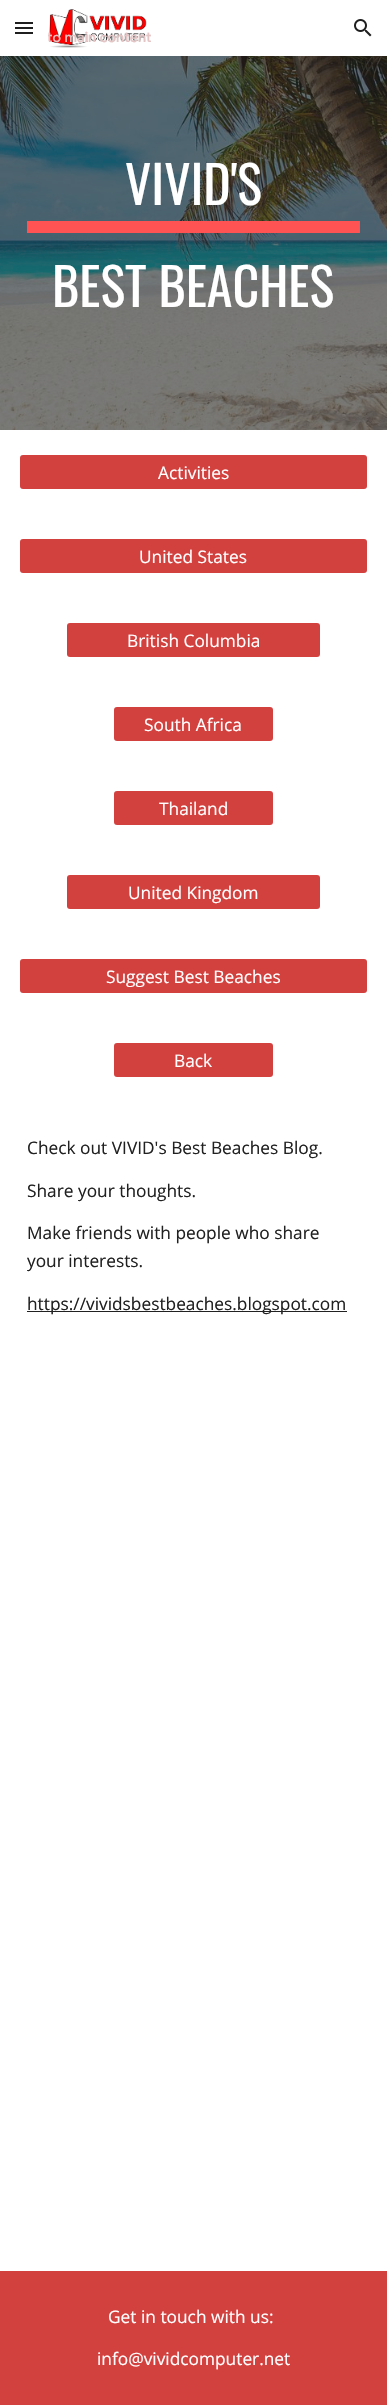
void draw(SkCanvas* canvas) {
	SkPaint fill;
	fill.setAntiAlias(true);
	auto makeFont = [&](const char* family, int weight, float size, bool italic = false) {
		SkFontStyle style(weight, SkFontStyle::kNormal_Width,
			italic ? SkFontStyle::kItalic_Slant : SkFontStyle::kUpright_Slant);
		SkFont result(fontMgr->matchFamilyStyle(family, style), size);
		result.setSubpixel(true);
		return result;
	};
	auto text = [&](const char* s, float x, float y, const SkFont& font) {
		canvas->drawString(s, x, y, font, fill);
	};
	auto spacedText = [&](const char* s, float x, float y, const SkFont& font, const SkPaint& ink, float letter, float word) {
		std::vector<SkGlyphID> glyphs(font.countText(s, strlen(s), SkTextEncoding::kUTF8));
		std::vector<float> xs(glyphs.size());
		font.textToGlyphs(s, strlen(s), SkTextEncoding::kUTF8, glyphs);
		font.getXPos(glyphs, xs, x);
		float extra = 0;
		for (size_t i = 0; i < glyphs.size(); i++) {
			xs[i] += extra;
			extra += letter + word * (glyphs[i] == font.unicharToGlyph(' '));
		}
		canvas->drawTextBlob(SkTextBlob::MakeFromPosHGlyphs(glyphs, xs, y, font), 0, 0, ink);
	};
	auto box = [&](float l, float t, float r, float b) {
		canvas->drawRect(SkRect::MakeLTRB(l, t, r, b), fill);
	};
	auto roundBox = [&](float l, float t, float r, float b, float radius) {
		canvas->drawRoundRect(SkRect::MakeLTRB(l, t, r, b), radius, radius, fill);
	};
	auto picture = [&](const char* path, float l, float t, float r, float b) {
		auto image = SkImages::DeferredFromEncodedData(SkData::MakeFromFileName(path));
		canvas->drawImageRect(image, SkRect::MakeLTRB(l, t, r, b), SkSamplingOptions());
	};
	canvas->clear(0xFFFFFFFF);
	fill.setColor(0xFF1F1F1F);
	box(15, 22, 33, 24);
	box(15, 27, 33, 29);
	box(15, 32, 33, 34);
	picture("image0.png", 49, 9, 147, 48);
	picture("image1.png", 354, 19, 372, 37);
	picture("image2.png", 0, 56, 387, 430);
	fill.setColor(0xFFFF5252);
	box(27, 221, 360, 233);
	fill.setColor(0xFFD3413F);
	roundBox(20, 455, 367, 489, 3);
	roundBox(20, 539, 367, 573, 3);
	roundBox(67, 623, 320, 657, 3);
	roundBox(114, 707, 273, 741, 3);
	roundBox(114, 791, 273, 825, 3);
	roundBox(67, 875, 320, 909, 3);
	roundBox(20, 959, 367, 993, 3);
	roundBox(114, 1043, 273, 1077, 3);
	fill.setColor(0xFF212121);
	box(27, 1311, 347, 1312);
	fill.setColor(0xFFD3413F);
	box(0, 2271, 387, 2405);
	auto font1 = makeFont("Google Sans", 500, 14);
	fill.setColor(0xFFE4C4C4);
	spacedText("to main content", 47, 42, font1, fill, 0.1f, 0);
	fill.setColor(0xFFFFFFFF);
	box(47, 34, 48, 37);
	auto font2 = makeFont("Oswald", 400, 52);
	text("VIVID'S", 125, 205, font2);
	text("BEST BEACHES", 52, 307, font2);
	auto font3 = makeFont("Open Sans", 400, 17.3f);
	text("Activities", 158, 479, font3);
	text("United States", 139, 563, font3);
	text("British Columbia", 127, 647, font3);
	text("South Africa", 144, 731, font3);
	text("Thailand", 159, 815, font3);
	text("United Kingdom", 128, 899, font3);
	canvas->save();
	canvas->clipRect(SkRect::MakeLTRB(26, 965, 361, 987));
	text("Suggest Best Beaches", 106, 983, font3);
	canvas->restore();
	text("Back", 174, 1067, font3);
	fill.setColor(0xFF212121);
	text("Check out VIVID's Best Beaches Blog.", 27, 1154, font3);
	text("Share your thoughts.", 27, 1197, font3);
	text("Make friends with people who share", 27, 1239, font3);
	text("your interests.", 27, 1267, font3);
	text("https://vividsbestbeaches.blogspot.com", 27, 1310, font3);
	fill.setColor(0xFFFFFFFF);
	text("Get in touch with us:", 108, 2323, font3);
	text("info@vividcomputer.net", 97, 2365, font3);
}
